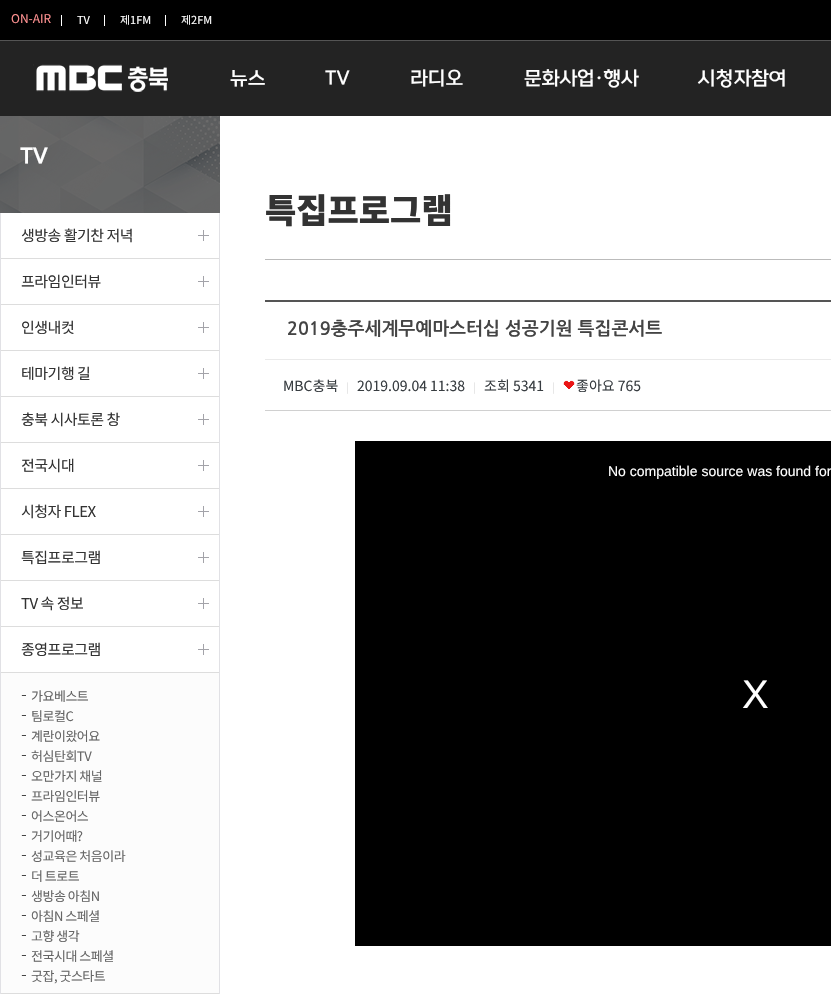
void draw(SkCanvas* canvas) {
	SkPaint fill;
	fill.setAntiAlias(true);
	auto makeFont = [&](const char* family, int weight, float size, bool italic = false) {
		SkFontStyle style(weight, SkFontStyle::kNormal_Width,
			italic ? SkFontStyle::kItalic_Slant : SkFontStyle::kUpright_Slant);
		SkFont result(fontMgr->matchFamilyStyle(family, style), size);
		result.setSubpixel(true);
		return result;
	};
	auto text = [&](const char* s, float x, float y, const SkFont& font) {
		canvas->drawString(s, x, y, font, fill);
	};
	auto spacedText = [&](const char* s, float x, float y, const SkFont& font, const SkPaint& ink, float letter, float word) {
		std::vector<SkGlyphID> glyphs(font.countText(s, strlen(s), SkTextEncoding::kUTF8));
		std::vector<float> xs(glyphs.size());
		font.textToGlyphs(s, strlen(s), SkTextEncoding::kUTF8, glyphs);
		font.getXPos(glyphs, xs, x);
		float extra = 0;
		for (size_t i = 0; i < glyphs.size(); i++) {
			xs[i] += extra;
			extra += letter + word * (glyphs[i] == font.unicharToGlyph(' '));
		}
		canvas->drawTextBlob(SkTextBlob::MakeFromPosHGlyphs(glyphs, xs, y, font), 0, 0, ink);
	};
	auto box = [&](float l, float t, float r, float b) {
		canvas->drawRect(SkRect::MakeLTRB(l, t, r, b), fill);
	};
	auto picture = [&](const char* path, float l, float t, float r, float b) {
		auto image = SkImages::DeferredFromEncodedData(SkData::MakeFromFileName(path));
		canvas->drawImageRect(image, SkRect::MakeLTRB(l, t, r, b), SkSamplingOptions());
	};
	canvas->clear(0xFFFFFFFF);
	fill.setColor(0xFF000000);
	box(0, 0, 831, 40);
	fill.setColor(0xFFFFFFFF);
	box(61, 15, 62, 26);
	box(104, 15, 105, 26);
	box(165, 15, 166, 26);
	fill.setColor(0xFF232323);
	box(0, 41, 831, 116);
	picture("image0.png", 33, 64, 168, 92);
	fill.setColor(0xFF545454);
	box(0, 40, 831, 41);
	picture("image1.png", 0, 116, 220, 213);
	fill.setColor(0xFFE1E1E5);
	box(219, 213, 220, 994);
	box(0, 213, 1, 994);
	picture("image2.png", 198, 230, 209, 241);
	fill.setColor(0xFFDDDDDD);
	box(1, 258, 219, 259);
	picture("image2.png", 198, 276, 209, 287);
	box(1, 304, 219, 305);
	picture("image2.png", 198, 322, 209, 333);
	box(1, 350, 219, 351);
	picture("image2.png", 198, 368, 209, 379);
	box(1, 396, 219, 397);
	picture("image2.png", 198, 414, 209, 425);
	box(1, 442, 219, 443);
	picture("image2.png", 198, 460, 209, 471);
	box(1, 488, 219, 489);
	picture("image2.png", 198, 506, 209, 517);
	box(1, 534, 219, 535);
	picture("image2.png", 198, 552, 209, 563);
	box(1, 580, 219, 581);
	picture("image2.png", 198, 598, 209, 609);
	box(1, 626, 219, 627);
	picture("image2.png", 198, 644, 209, 655);
	box(1, 672, 219, 673);
	fill.setColor(0xFFFCFCFC);
	box(1, 673, 219, 993);
	fill.setColor(0xFFDDDDDD);
	box(1, 993, 219, 994);
	picture("image3.png", 21, 695, 26, 696);
	picture("image3.png", 21, 715, 26, 716);
	picture("image3.png", 21, 735, 26, 736);
	picture("image3.png", 21, 755, 26, 756);
	picture("image3.png", 21, 775, 26, 776);
	picture("image3.png", 21, 795, 26, 796);
	picture("image3.png", 21, 815, 26, 816);
	picture("image3.png", 21, 835, 26, 836);
	picture("image3.png", 21, 855, 26, 856);
	picture("image3.png", 21, 875, 26, 876);
	picture("image3.png", 21, 895, 26, 896);
	picture("image3.png", 21, 915, 26, 916);
	picture("image3.png", 21, 935, 26, 936);
	picture("image3.png", 21, 955, 26, 956);
	picture("image3.png", 21, 975, 26, 976);
	fill.setColor(0xFFBBBBBB);
	box(265, 259, 831, 260);
	fill.setColor(0xFF555555);
	box(265, 300, 831, 302);
	fill.setColor(0xFFEAEAEA);
	box(265, 359, 831, 360);
	fill.setColor(0xFFD0D0D0);
	box(265, 410, 831, 411);
	picture("image4.png", 563, 380, 575, 389);
	fill.setColor(0xFF000000);
	box(355, 441, 831, 946);
	auto font1 = makeFont("Noto Sans KR", 400, 12);
	fill.setColor(0xFFFF9191);
	text("ON-AIR", 11, 23, font1);
	auto font2 = makeFont("Noto Sans KR", 400, 11);
	fill.setColor(0xFFFFFFFF);
	text("TV", 77, 24, font2);
	text("제1FM", 120, 24, font2);
	text("제2FM", 181, 24, font2);
	auto font3 = makeFont("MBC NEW", 500, 19);
	text("뉴스", 230, 84, font3);
	text("TV", 325, 84, font3);
	text("라디오", 410, 84, font3);
	text("문화사업·행사", 524, 84, font3);
	text("시청자참여", 698, 84, font3);
	auto font4 = makeFont("MBC NEW", 700, 21);
	text("TV", 20, 163, font4);
	auto font5 = makeFont("Noto Sans KR", 400, 15);
	fill.setColor(0xFF333333);
	spacedText("생방송 활기찬 저녁", 21, 241, font5, fill, -0.5f, 0);
	spacedText("프라임인터뷰", 21, 287, font5, fill, -0.5f, 0);
	spacedText("인생내컷", 21, 333, font5, fill, -0.5f, 0);
	spacedText("테마기행 길", 21, 379, font5, fill, -0.5f, 0);
	spacedText("충북 시사토론 창", 21, 425, font5, fill, -0.5f, 0);
	spacedText("전국시대", 21, 471, font5, fill, -0.5f, 0);
	spacedText("시청자 FLEX", 21, 517, font5, fill, -0.5f, 0);
	spacedText("특집프로그램", 21, 563, font5, fill, -0.5f, 0);
	spacedText("TV 속 정보", 21, 609, font5, fill, -0.5f, 0);
	spacedText("종영프로그램", 21, 655, font5, fill, -0.5f, 0);
	auto font6 = makeFont("Noto Sans KR", 400, 13);
	fill.setColor(0xFF666666);
	spacedText("가요베스트", 31, 701, font6, fill, -0.5f, 0);
	spacedText("팀로컬C", 31, 721, font6, fill, -0.5f, 0);
	spacedText("계란이왔어요", 31, 741, font6, fill, -0.5f, 0);
	spacedText("허심탄회TV", 31, 761, font6, fill, -0.5f, 0);
	spacedText("오만가지 채널", 31, 781, font6, fill, -0.5f, 0);
	spacedText("프라임인터뷰", 31, 801, font6, fill, -0.5f, 0);
	spacedText("어스온어스", 31, 821, font6, fill, -0.5f, 0);
	spacedText("거기어때?", 31, 841, font6, fill, -0.5f, 0);
	spacedText("성교육은 처음이라", 31, 861, font6, fill, -0.5f, 0);
	spacedText("더 트로트", 31, 881, font6, fill, -0.5f, 0);
	spacedText("생방송 아침N", 31, 901, font6, fill, -0.5f, 0);
	spacedText("아침N 스페셜", 31, 921, font6, fill, -0.5f, 0);
	spacedText("고향 생각", 31, 941, font6, fill, -0.5f, 0);
	spacedText("전국시대 스페셜", 31, 961, font6, fill, -0.5f, 0);
	spacedText("굿잡, 굿스타트", 31, 981, font6, fill, -0.5f, 0);
	auto font7 = makeFont("Noto Sans KR", 900, 34);
	fill.setColor(0xFF333333);
	text("특집프로그램", 265, 223, font7);
	auto font8 = makeFont("NanumGothic", 700, 18);
	fill.setColor(0xFF444444);
	text("2019충주세계무예마스터십 성공기원 특집콘서트", 287, 334, font8);
	auto font9 = makeFont("Noto Sans KR", 400, 14);
	fill.setColor(0xFF383D41);
	text("MBC충북", 283, 391, font9);
	auto font10 = makeFont("Noto Sans KR", 400, 10);
	fill.setColor(0xFFDFDFDF);
	text("|", 346, 391, font10);
	fill.setColor(0xFF383D41);
	text("2019.09.04 11:38", 357, 391, font9);
	fill.setColor(0xFFDFDFDF);
	text("|", 473, 391, font10);
	fill.setColor(0xFF383D41);
	text("조회 5341", 484, 391, font9);
	fill.setColor(0xFFDFDFDF);
	text("|", 552, 391, font10);
	fill.setColor(0xFF383D41);
	text("좋아요 765", 576, 391, font9);
	auto font11 = makeFont("Liberation Sans", 400, 14);
	fill.setColor(0xFFFFFFFF);
	text("No compatible source was found for", 608, 476, font11);
	auto font12 = makeFont("Liberation Sans", 400, 40);
	text("X", 742, 708, font12);
}
